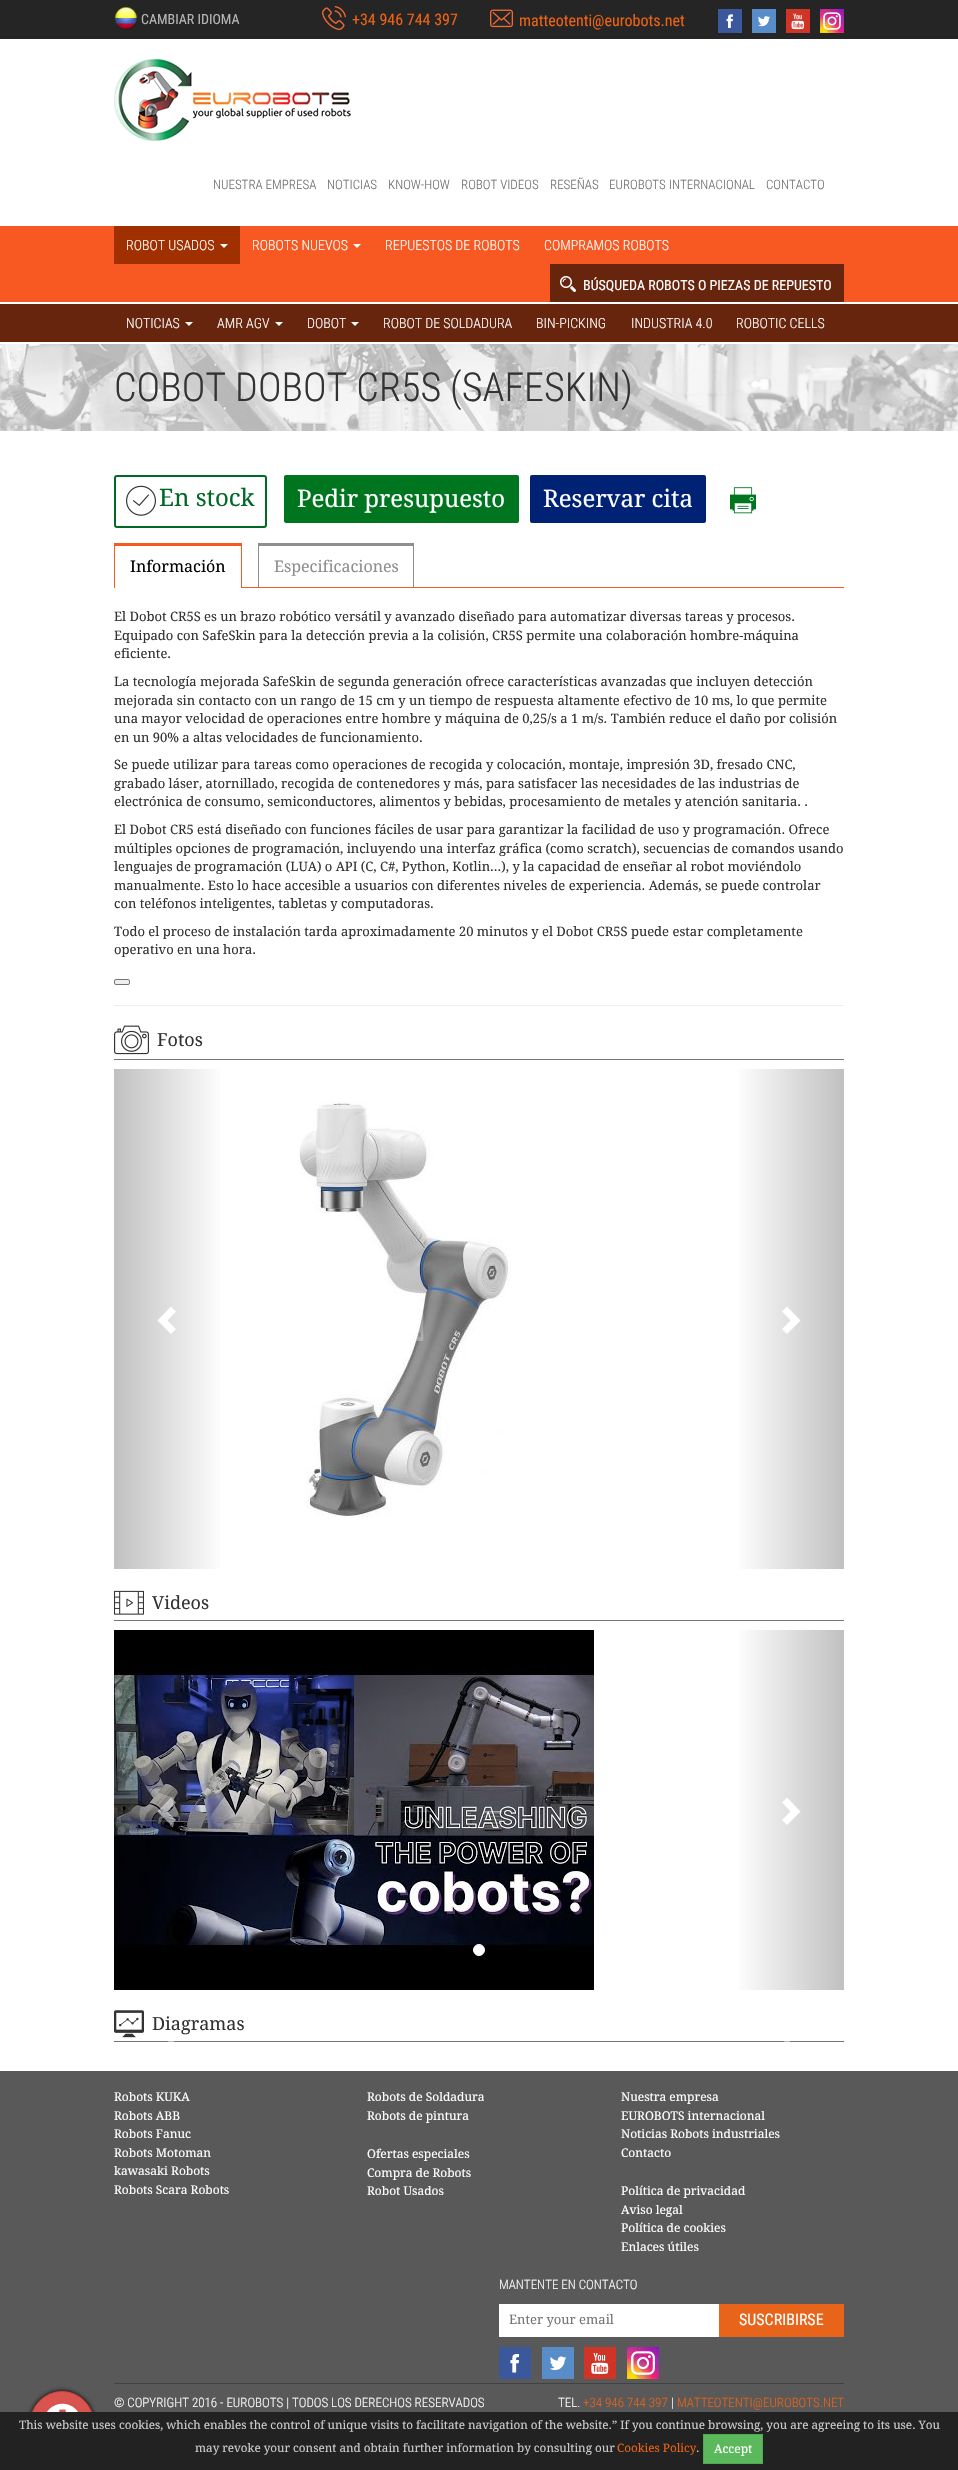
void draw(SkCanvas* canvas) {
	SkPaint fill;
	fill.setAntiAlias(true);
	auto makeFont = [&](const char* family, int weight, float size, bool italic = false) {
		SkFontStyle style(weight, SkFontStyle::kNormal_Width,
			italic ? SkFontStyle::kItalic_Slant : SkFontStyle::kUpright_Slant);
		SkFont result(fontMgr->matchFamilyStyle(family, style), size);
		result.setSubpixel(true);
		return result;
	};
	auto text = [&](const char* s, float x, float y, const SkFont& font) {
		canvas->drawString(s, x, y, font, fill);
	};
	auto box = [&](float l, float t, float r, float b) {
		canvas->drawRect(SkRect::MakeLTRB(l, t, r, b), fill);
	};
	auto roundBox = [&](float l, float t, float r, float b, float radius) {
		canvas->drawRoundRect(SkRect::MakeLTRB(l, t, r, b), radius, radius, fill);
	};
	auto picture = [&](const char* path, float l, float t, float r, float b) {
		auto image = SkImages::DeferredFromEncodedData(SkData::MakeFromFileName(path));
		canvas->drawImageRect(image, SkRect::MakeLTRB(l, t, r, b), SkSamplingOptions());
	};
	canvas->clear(0xFFFFFFFF);
	fill.setColor(0xFF252525);
	box(0, 0, 958, 39);
	picture("image0.png", 114, 6, 138, 30);
	picture("image1.png", 322, 6, 346, 30);
	picture("image2.png", 490, 9, 513, 28);
	fill.setColor(0xFFFFFFFF);
	box(726, 14, 733, 28);
	picture("image3.png", 718, 9, 742, 33);
	box(758, 16, 770, 27);
	picture("image4.png", 752, 9, 776, 33);
	box(791, 13, 805, 30);
	picture("image5.png", 786, 9, 810, 33);
	picture("image6.png", 820, 9, 844, 33);
	picture("image7.png", 114, 59, 351, 141);
	fill.setColor(0xFFF85922);
	box(0, 226, 958, 302);
	fill.setColor(0xFFA03000);
	box(114, 226, 240, 264);
	fill.setColor(0xFFFFFFFF);
	canvas->drawPath(SkPathBuilder().moveTo(220, 244).lineTo(228, 244).lineTo(224, 248).close().detach(), fill);
	canvas->drawPath(SkPathBuilder().moveTo(353, 244).lineTo(361, 244).lineTo(357, 248).close().detach(), fill);
	fill.setColor(0xFF67250E);
	box(550, 264, 844, 302);
	picture("image8.png", 560, 276, 576, 292);
	box(0, 304, 958, 342);
	fill.setColor(0xFFFFFFFF);
	canvas->drawPath(SkPathBuilder().moveTo(185, 322).lineTo(193, 322).lineTo(189, 326).close().detach(), fill);
	canvas->drawPath(SkPathBuilder().moveTo(275, 322).lineTo(283, 322).lineTo(279, 326).close().detach(), fill);
	canvas->drawPath(SkPathBuilder().moveTo(351, 322).lineTo(359, 322).lineTo(355, 326).close().detach(), fill);
	picture("image9.png", 0, 344, 958, 431);
	fill.setStyle(SkPaint::kStroke_Style);
	fill.setStrokeWidth(2);
	fill.setColor(0xFF006A25);
	canvas->drawRoundRect(SkRect::MakeLTRB(115, 476, 266, 527), 2, 2, fill);
	picture("image10.png", 126, 485, 156, 516);
	fill.setStyle(SkPaint::kFill_Style);
	fill.setColor(0xFF007520);
	roundBox(284, 475, 519, 523, 2);
	fill.setColor(0xFF002275);
	roundBox(530, 475, 706, 523, 2);
	picture("image11.png", 730, 487, 756, 514);
	fill.setColor(0xFFF85922);
	box(242, 587, 844, 588);
	box(114, 543, 242, 546);
	box(241, 543, 242, 588);
	box(114, 543, 115, 588);
	fill.setColor(0xFF8E8E8E);
	box(258, 543, 414, 546);
	box(413, 543, 414, 588);
	box(258, 543, 259, 588);
	fill.setColor(0xFFEFEFEF);
	canvas->drawRoundRect(SkRect::MakeLTRB(114.5f, 979.5f, 129.5f, 984.5f), 1.5f, 1.5f, fill);
	fill.setStyle(SkPaint::kStroke_Style);
	fill.setStrokeWidth(1);
	fill.setColor(0xFF767676);
	canvas->drawRoundRect(SkRect::MakeLTRB(114.5f, 979.5f, 129.5f, 984.5f), 1.5f, 1.5f, fill);
	fill.setStyle(SkPaint::kFill_Style);
	fill.setColor(0xFFEEEEEE);
	box(114, 1005, 844, 1006);
	fill.setColor(0xFF737373);
	box(114, 1059, 844, 1060);
	picture("image12.png", 114, 1025, 149, 1055);
	{
		const SkColor colors[] = {0xFFC0C0C0, 0xFFFFFFFF};
		const float stops[] = {0, 1};
		const SkPoint ends[] = {{114, 1319}, {224, 1319}};
		fill.setShader(SkGradientShader::MakeLinear(ends, colors, stops, 2, SkTileMode::kClamp));
		fill.setAlpha(255);
	}
	box(114, 1069, 220, 1569);
	fill.setShader(nullptr);
	fill.setColor(0xFFFFFFFF);
	canvas->drawPath(SkPathBuilder().moveTo(176, 1311.5f).lineTo(167.5f, 1320.5f).lineTo(176, 1329).lineTo(171, 1334).lineTo(157.5f, 1320.5f).lineTo(171, 1306.5f).close().detach(), fill);
	picture("image13.png", 298, 1101, 512, 1517);
	{
		const SkColor colors[] = {0xFFFFFFFF, 0xFFC0C0C0};
		const float stops[] = {0, 1};
		const SkPoint ends[] = {{735, 1319}, {844, 1319}};
		fill.setShader(SkGradientShader::MakeLinear(ends, colors, stops, 2, SkTileMode::kClamp));
		fill.setAlpha(255);
	}
	box(739, 1069, 844, 1569);
	fill.setShader(nullptr);
	fill.setColor(0xFFFFFFFF);
	canvas->drawPath(SkPathBuilder().moveTo(800.5f, 1320.5f).lineTo(787, 1334).lineTo(782, 1329).lineTo(790.5f, 1320.5f).lineTo(782, 1311.5f).lineTo(787, 1306.5f).close().detach(), fill);
	fill.setColor(0xFF737373);
	box(114, 1620, 844, 1621);
	picture("image14.png", 114, 1590, 144, 1615);
	picture("image15.png", 114, 1630, 594, 1990);
	{
		const SkColor colors[] = {0xFFFFFFFF, 0xFFC0C0C0};
		const float stops[] = {0, 1};
		const SkPoint ends[] = {{735, 1810}, {844, 1810}};
		fill.setShader(SkGradientShader::MakeLinear(ends, colors, stops, 2, SkTileMode::kClamp));
		fill.setAlpha(255);
	}
	box(739, 1630, 844, 1990);
	fill.setShader(nullptr);
	fill.setColor(0xFFFFFFFF);
	canvas->drawPath(SkPathBuilder().moveTo(800.5f, 1811.5f).lineTo(787, 1825).lineTo(782, 1820).lineTo(790.5f, 1811.5f).lineTo(782, 1802.5f).lineTo(787, 1797.5f).close().detach(), fill);
	fill.setColor(0x80FFFFFF);
	canvas->drawPath(SkPathBuilder().moveTo(176, 1802.5f).lineTo(167.5f, 1811.5f).lineTo(176, 1820).lineTo(171, 1825).lineTo(157.5f, 1811.5f).lineTo(171, 1797.5f).close().detach(), fill);
	fill.setColor(0xFFFFFFFF);
	canvas->drawCircle(479, 1950, 5.5f, fill);
	fill.setStyle(SkPaint::kStroke_Style);
	canvas->drawCircle(479, 1950, 5.5f, fill);
	fill.setStyle(SkPaint::kFill_Style);
	fill.setColor(0xFF737373);
	box(114, 2041, 844, 2042);
	picture("image16.png", 114, 2010, 144, 2038);
	fill.setColor(0x80FFFFFF);
	canvas->drawPath(SkPathBuilder().moveTo(176, 2043.5f).lineTo(167.5f, 2052.5f).lineTo(176, 2061).lineTo(171, 2066).lineTo(157.5f, 2052.5f).lineTo(171, 2038.5f).close().detach(), fill);
	canvas->drawPath(SkPathBuilder().moveTo(800.5f, 2052.5f).lineTo(787, 2066).lineTo(782, 2061).lineTo(790.5f, 2052.5f).lineTo(782, 2043.5f).lineTo(787, 2038.5f).close().detach(), fill);
	fill.setColor(0xFF595959);
	box(0, 2071, 958, 2412);
	fill.setColor(0xFFFFFFFF);
	box(499, 2304, 719, 2337);
	fill.setColor(0xFFE8641B);
	box(719, 2304, 844, 2337);
	fill.setColor(0xFFFFFFFF);
	box(510, 2354, 520, 2373);
	picture("image17.png", 499, 2347, 531, 2379);
	box(549, 2356, 567, 2371);
	picture("image18.png", 542, 2347, 574, 2379);
	box(591, 2353, 609, 2375);
	picture("image19.png", 584, 2347, 616, 2379);
	picture("image20.png", 627, 2347, 659, 2379);
	fill.setColor(0xFF424242);
	box(114, 2383, 844, 2384);
	fill.setColor(0xFF000000);
	fill.setMaskFilter(SkMaskFilter::MakeBlur(kNormal_SkBlurStyle, 2.5f));
	canvas->drawRoundRect(SkRect::MakeLTRB(30, 2391, 94, 2455), 32, 32, fill);
	fill.setMaskFilter(nullptr);
	fill.setColor(0xFFD9534F);
	canvas->drawCircle(62, 2423, 31.5f, fill);
	fill.setStyle(SkPaint::kStroke_Style);
	fill.setColor(0xFFD43F3A);
	canvas->drawCircle(62, 2423, 31.5f, fill);
	picture("image21.png", 47, 2403, 78, 2412);
	fill.setStyle(SkPaint::kFill_Style);
	fill.setColor(0xFF222222);
	box(0, 2412, 958, 2470);
	fill.setColor(0xFF5CB85C);
	canvas->drawRect(SkRect::MakeLTRB(703.5f, 2434.5f, 762.5f, 2463.5f), fill);
	fill.setStyle(SkPaint::kStroke_Style);
	fill.setColor(0xFF4CAE4C);
	canvas->drawRect(SkRect::MakeLTRB(703.5f, 2434.5f, 762.5f, 2463.5f), fill);
	auto font1 = makeFont("Roboto Condensed", 400, 14);
	fill.setStyle(SkPaint::kFill_Style);
	fill.setColor(0xFFB6B6B6);
	text("CAMBIAR IDIOMA", 141, 24, font1);
	auto font2 = makeFont("Roboto Condensed", 400, 16);
	fill.setColor(0xFFED6213);
	text("+34 946 744 397", 352, 25, font2);
	text("matteotenti@eurobots.net", 519, 26, font2);
	auto font3 = makeFont("Roboto Condensed", 300, 13);
	fill.setColor(0xFF6C6C6C);
	text("NUESTRA EMPRESA", 213, 189, font3);
	text("NOTICIAS", 327, 189, font3);
	text("KNOW-HOW", 388, 189, font3);
	text("ROBOT VIDEOS", 461, 189, font3);
	text("RESEÑAS", 550, 189, font3);
	text("EUROBOTS INTERNACIONAL", 609, 189, font3);
	text("CONTACTO", 766, 189, font3);
	auto font4 = makeFont("Roboto Condensed", 300, 14);
	fill.setColor(0xFFFFFFFF);
	text("ROBOT USADOS", 126, 250, font4);
	text("ROBOTS NUEVOS", 252, 250, font4);
	text("REPUESTOS DE ROBOTS", 385, 250, font4);
	text("COMPRAMOS ROBOTS", 544, 250, font4);
	text("BÚSQUEDA ROBOTS O PIEZAS DE REPUESTO", 583, 290, font1);
	text("NOTICIAS", 126, 328, font4);
	text("AMR AGV", 217, 328, font4);
	text("DOBOT", 307, 328, font4);
	text("ROBOT DE SOLDADURA", 383, 328, font4);
	text("BIN-PICKING", 536, 328, font4);
	text("INDUSTRIA 4.0", 631, 328, font4);
	text("ROBOTIC CELLS", 736, 328, font4);
	auto font5 = makeFont("Roboto Condensed", 300, 40);
	fill.setColor(0xFF333333);
	text("COBOT DOBOT CR5S (SAFESKIN)", 114, 401, font5);
	auto font6 = makeFont("Droid Serif", 400, 24);
	fill.setColor(0xFF006A25);
	text("En stock", 159, 506, font6);
	fill.setColor(0xFFFFFFFF);
	text("Pedir presupuesto", 297, 507, font6);
	text("Reservar cita", 543, 507, font6);
	auto font7 = makeFont("Droid Serif", 400, 16);
	fill.setColor(0xFF000000);
	text("Información", 130, 572, font7);
	fill.setColor(0xFF8E8E8E);
	text("Especificaciones", 274, 572, font7);
	auto font8 = makeFont("Droid Serif", 400, 13);
	fill.setColor(0xFF333333);
	text("El Dobot CR5S es un brazo robótico versátil y avanzado diseñado para automatizar diversas tareas y procesos.", 114, 621, font8);
	text("Equipado con SafeSkin para la detección previa a la colisión, CR5S permite una colaboración hombre-máquina", 114, 640, font8);
	text("eficiente.", 114, 658, font8);
	text("La tecnología mejorada SafeSkin de segunda generación ofrece características avanzadas que incluyen detección", 114, 686, font8);
	text("mejorada sin contacto con un rango de 15 cm y un tiempo de respuesta altamente efectivo de 10 ms, lo que permite", 114, 705, font8);
	text("una mayor velocidad de operaciones entre hombre y máquina de 0,25/s a 1 m/s. También reduce el daño por colisión", 114, 723, font8);
	text("en un 90% a altas velocidades de funcionamiento.", 114, 742, font8);
	text("Se puede utilizar para tareas como operaciones de recogida y colocación, montaje, impresión 3D, fresado CNC,", 114, 769, font8);
	text("grabado láser, atornillado, recogida de contenedores y más, para satisfacer las necesidades de las industrias de", 114, 788, font8);
	text("electrónica de consumo, semiconductores, alimentos y bebidas, procesamiento de metales y atención sanitaria. .", 114, 806, font8);
	text("El Dobot CR5 está diseñado con funciones fáciles de usar para garantizar la facilidad de uso y programación. Ofrece", 114, 834, font8);
	text("múltiples opciones de programación, incluyendo una interfaz gráfica (como scratch), secuencias de comandos usando", 114, 853, font8);
	text("lenguajes de programación (LUA) o API (C, C#, Python, Kotlin...), y la capacidad de enseñar al robot moviéndolo", 114, 871, font8);
	text("manualmente. Esto lo hace accesible a usuarios con diferentes niveles de experiencia. Además, se puede controlar", 114, 890, font8);
	text("con teléfonos inteligentes, tabletas y computadoras.", 114, 908, font8);
	text("Todo el proceso de instalación tarda aproximadamente 20 minutos y el Dobot CR5S puede estar completamente", 114, 936, font8);
	text("operativo en una hora.", 114, 954, font8);
	auto font9 = makeFont("Droid Serif", 400, 18);
	text("Fotos", 157, 1046, font9);
	text("Videos", 152, 1609, font9);
	text("Diagramas", 152, 2030, font9);
	auto font10 = makeFont("Droid Serif", 400, 12);
	fill.setColor(0xFFFFFFFF);
	text("Robots KUKA", 114, 2101, font10);
	text("Robots ABB", 114, 2120, font10);
	text("Robots Fanuc", 114, 2138, font10);
	text("Robots Motoman", 114, 2157, font10);
	text("kawasaki Robots", 114, 2175, font10);
	text("Robots Scara Robots", 114, 2194, font10);
	text("Robots de Soldadura", 367, 2101, font10);
	text("Robots de pintura", 367, 2120, font10);
	text("Ofertas especiales", 367, 2158, font10);
	text("Compra de Robots", 367, 2177, font10);
	text("Robot Usados", 367, 2195, font10);
	text("Nuestra empresa", 621, 2101, font10);
	text("EUROBOTS internacional", 621, 2120, font10);
	text("Noticias Robots industriales", 621, 2138, font10);
	text("Contacto", 621, 2157, font10);
	text("Política de privacidad", 621, 2195, font10);
	text("Aviso legal", 621, 2214, font10);
	text("Política de cookies", 621, 2232, font10);
	text("Enlaces útiles", 621, 2251, font10);
	text("MANTENTE EN CONTACTO", 499, 2289, font3);
	fill.setColor(0xFF757575);
	text("Enter your email", 509, 2324, font8);
	fill.setColor(0xFFFFFFFF);
	text("SUSCRIBIRSE", 739, 2325, font2);
	text("© COPYRIGHT 2016 - EUROBOTS | TODOS LOS DERECHOS RESERVADOS", 114, 2407, font3);
	text("TEL.", 558, 2407, font3);
	fill.setColor(0xFFED6213);
	text("+34 946 744 397", 583, 2407, font3);
	fill.setColor(0xFFFFFFFF);
	text("|", 671, 2407, font3);
	fill.setColor(0xFFED6213);
	text("MATTEOTENTI@EUROBOTS.NET", 677, 2407, font3);
	auto font11 = makeFont("Droid Serif", 400, 11.7f);
	fill.setColor(0xFFCCCCCC);
	text("This website uses cookies, which enables the control of unique visits to facilitate navigation of the website.” If you continue browsing, you are agreeing to its use. You", 19, 2429, font11);
	text("may revoke your consent and obtain further information by consulting our", 195, 2452, font11);
	fill.setColor(0xFFED6213);
	text("Cookies Policy", 617, 2452, font11);
	fill.setColor(0xFFCCCCCC);
	text(".", 696, 2452, font11);
	fill.setColor(0xFFFFFFFF);
	text("Accept", 714, 2453, font10);
}
